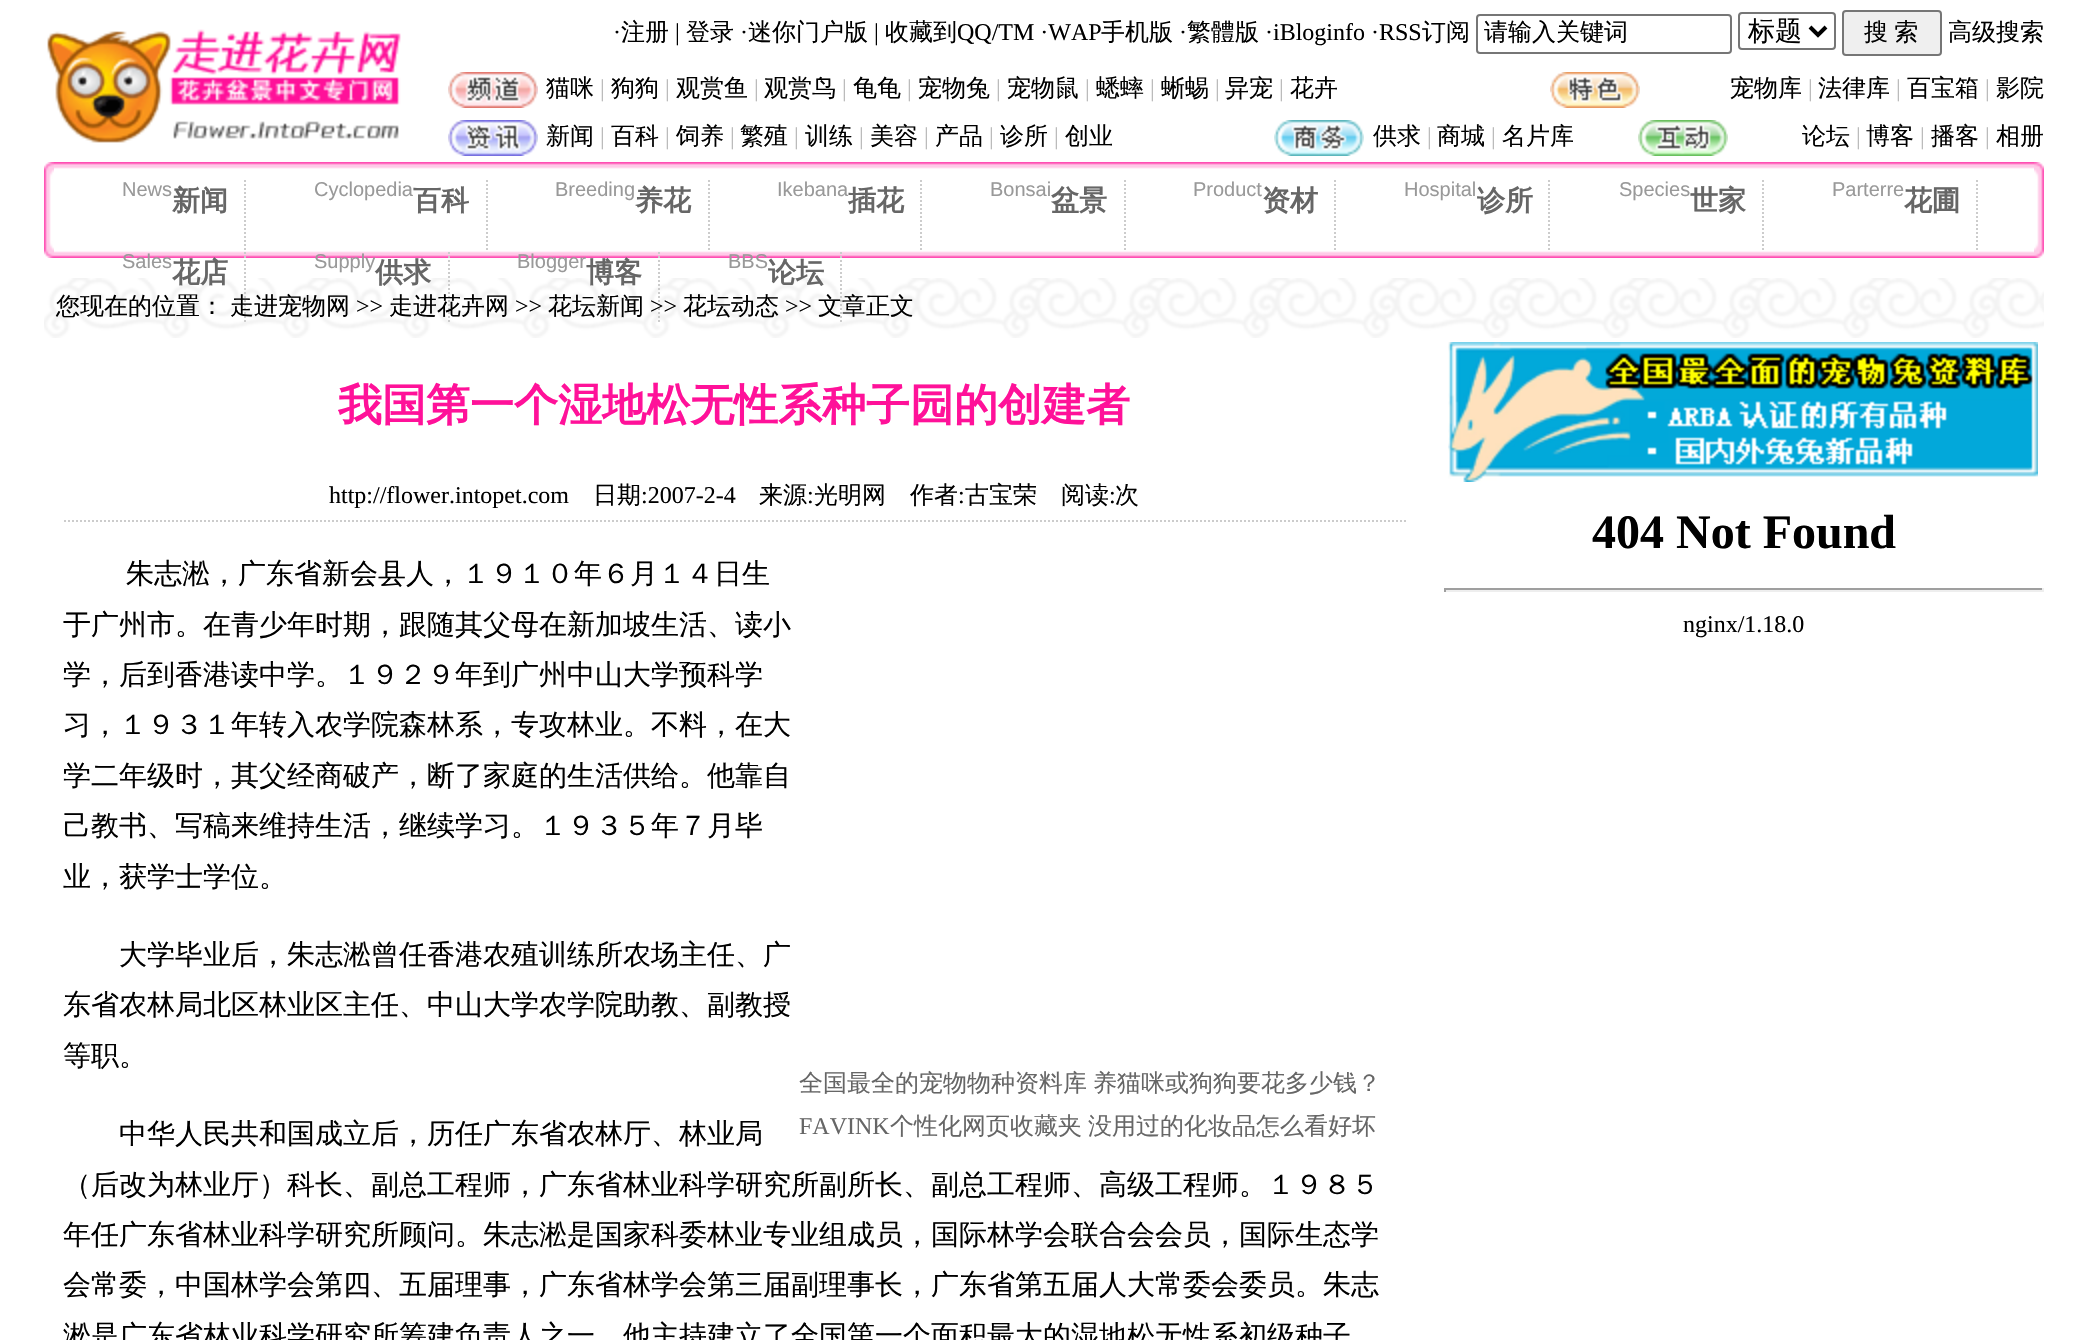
void draw(SkCanvas* canvas) {
	SkPaint fill;
	fill.setAntiAlias(true);
	auto makeFont = [&](const char* family, int weight, float size, bool italic = false) {
		SkFontStyle style(weight, SkFontStyle::kNormal_Width,
			italic ? SkFontStyle::kItalic_Slant : SkFontStyle::kUpright_Slant);
		SkFont result(fontMgr->matchFamilyStyle(family, style), size);
		result.setSubpixel(true);
		return result;
	};
	auto text = [&](const char* s, float x, float y, const SkFont& font) {
		canvas->drawString(s, x, y, font, fill);
	};
	auto spacedText = [&](const char* s, float x, float y, const SkFont& font, const SkPaint& ink, float letter, float word) {
		std::vector<SkGlyphID> glyphs(font.countText(s, strlen(s), SkTextEncoding::kUTF8));
		std::vector<float> xs(glyphs.size());
		font.textToGlyphs(s, strlen(s), SkTextEncoding::kUTF8, glyphs);
		font.getXPos(glyphs, xs, x);
		float extra = 0;
		for (size_t i = 0; i < glyphs.size(); i++) {
			xs[i] += extra;
			extra += letter + word * (glyphs[i] == font.unicharToGlyph(' '));
		}
		canvas->drawTextBlob(SkTextBlob::MakeFromPosHGlyphs(glyphs, xs, y, font), 0, 0, ink);
	};
	auto box = [&](float l, float t, float r, float b) {
		canvas->drawRect(SkRect::MakeLTRB(l, t, r, b), fill);
	};
	auto picture = [&](const char* path, float l, float t, float r, float b) {
		auto image = SkImages::DeferredFromEncodedData(SkData::MakeFromFileName(path));
		canvas->drawImageRect(image, SkRect::MakeLTRB(l, t, r, b), SkSamplingOptions());
	};
	canvas->clear(0xFFFFFFFF);
	picture("image0.png", 47, 29, 401, 143);
	fill.setStyle(SkPaint::kStroke_Style);
	fill.setStrokeWidth(2);
	fill.setColor(0xFF767676);
	canvas->drawRoundRect(SkRect::MakeLTRB(1477, 15, 1731, 53), 3, 3, fill);
	canvas->drawRoundRect(SkRect::MakeLTRB(1739, 13, 1835, 49), 3, 3, fill);
	fill.setStrokeWidth(4);
	fill.setColor(0xFF000000);
	canvas->drawPath(SkPathBuilder().moveTo(1810, 27).lineTo(1818, 35).lineTo(1826, 27).detach(), fill);
	fill.setStyle(SkPaint::kFill_Style);
	fill.setColor(0xFFEFEFEF);
	canvas->drawRoundRect(SkRect::MakeLTRB(1843, 11, 1941, 55), 3, 3, fill);
	fill.setStyle(SkPaint::kStroke_Style);
	fill.setStrokeWidth(2);
	fill.setColor(0xFF767676);
	canvas->drawRoundRect(SkRect::MakeLTRB(1843, 11, 1941, 55), 3, 3, fill);
	picture("image1.png", 448, 72, 538, 108);
	picture("image2.png", 1550, 72, 1640, 108);
	picture("image3.png", 448, 120, 538, 156);
	picture("image4.png", 1274, 120, 1364, 156);
	picture("image5.png", 1638, 120, 1728, 156);
	picture("image6.png", 44, 162, 54, 258);
	picture("image7.png", 54, 162, 2034, 258);
	fill.setColor(0xFFCCCCCC);
	fill.setPathEffect(SkDashPathEffect::Make({{2, 2}}, 0));
	canvas->drawPath(SkPathBuilder().moveTo(245, 180).lineTo(245, 252).detach(), fill);
	fill.setPathEffect(nullptr);
	fill.setPathEffect(SkDashPathEffect::Make({{2, 2}}, 0));
	canvas->drawPath(SkPathBuilder().moveTo(487, 180).lineTo(487, 252).detach(), fill);
	fill.setPathEffect(nullptr);
	fill.setPathEffect(SkDashPathEffect::Make({{2, 2}}, 0));
	canvas->drawPath(SkPathBuilder().moveTo(709, 180).lineTo(709, 252).detach(), fill);
	fill.setPathEffect(nullptr);
	fill.setPathEffect(SkDashPathEffect::Make({{2, 2}}, 0));
	canvas->drawPath(SkPathBuilder().moveTo(921, 180).lineTo(921, 252).detach(), fill);
	fill.setPathEffect(nullptr);
	fill.setPathEffect(SkDashPathEffect::Make({{2, 2}}, 0));
	canvas->drawPath(SkPathBuilder().moveTo(1125, 180).lineTo(1125, 252).detach(), fill);
	fill.setPathEffect(nullptr);
	fill.setPathEffect(SkDashPathEffect::Make({{2, 2}}, 0));
	canvas->drawPath(SkPathBuilder().moveTo(1335, 180).lineTo(1335, 252).detach(), fill);
	fill.setPathEffect(nullptr);
	fill.setPathEffect(SkDashPathEffect::Make({{2, 2}}, 0));
	canvas->drawPath(SkPathBuilder().moveTo(1549, 180).lineTo(1549, 252).detach(), fill);
	fill.setPathEffect(nullptr);
	fill.setPathEffect(SkDashPathEffect::Make({{2, 2}}, 0));
	canvas->drawPath(SkPathBuilder().moveTo(1763, 180).lineTo(1763, 252).detach(), fill);
	fill.setPathEffect(nullptr);
	fill.setPathEffect(SkDashPathEffect::Make({{2, 2}}, 0));
	canvas->drawPath(SkPathBuilder().moveTo(1977, 180).lineTo(1977, 252).detach(), fill);
	fill.setPathEffect(nullptr);
	picture("image9.png", 44, 278, 2044, 338);
	fill.setPathEffect(SkDashPathEffect::Make({{2, 2}}, 0));
	canvas->drawPath(SkPathBuilder().moveTo(245, 252).lineTo(245, 324).detach(), fill);
	fill.setPathEffect(nullptr);
	fill.setPathEffect(SkDashPathEffect::Make({{2, 2}}, 0));
	canvas->drawPath(SkPathBuilder().moveTo(449, 252).lineTo(449, 324).detach(), fill);
	fill.setPathEffect(nullptr);
	fill.setPathEffect(SkDashPathEffect::Make({{2, 2}}, 0));
	canvas->drawPath(SkPathBuilder().moveTo(659, 252).lineTo(659, 324).detach(), fill);
	fill.setPathEffect(nullptr);
	fill.setPathEffect(SkDashPathEffect::Make({{2, 2}}, 0));
	canvas->drawPath(SkPathBuilder().moveTo(841, 252).lineTo(841, 324).detach(), fill);
	fill.setPathEffect(nullptr);
	picture("image8.png", 2034, 162, 2044, 258);
	fill.setPathEffect(SkDashPathEffect::Make({{2, 2}}, 0));
	canvas->drawPath(SkPathBuilder().moveTo(64, 521).lineTo(1406, 521).detach(), fill);
	fill.setPathEffect(nullptr);
	picture("image10.png", 1448, 342, 2038, 482);
	fill.setStyle(SkPaint::kFill_Style);
	fill.setColor(0xFF9F9F9F);
	box(1444, 588, 2044, 590);
	fill.setColor(0xFFEEEEEE);
	box(2042, 588, 2044, 592);
	box(1444, 590, 2044, 592);
	fill.setColor(0xFF9F9F9F);
	box(1444, 588, 1446, 592);
	auto font1 = makeFont("Liberation Serif", 400, 24);
	fill.setColor(0xFF000000);
	text("·", 613, 40, font1);
	auto font2 = makeFont("WenQuanYi Zen Hei", 500, 24);
	text("注册", 621, 40, font2);
	text("|", 675, 40, font1);
	text("登录", 686, 40, font2);
	text("·", 740, 40, font1);
	text("迷你门户版", 748, 40, font2);
	text("|", 874, 40, font1);
	text("收藏到", 885, 40, font2);
	text("QQ/TM ·WAP", 957, 40, font1);
	text("手机版", 1101, 40, font2);
	text("·", 1179, 40, font1);
	text("繁體版", 1187, 40, font2);
	text("·iBloginfo ·RSS", 1265, 40, font1);
	text("订阅", 1422, 40, font2);
	text("请输入关键词", 1484, 40, font2);
	auto font3 = makeFont("WenQuanYi Zen Hei", 500, 27);
	text("标题", 1748, 40, font3);
	spacedText("搜 索", 1864, 40, font2, fill, 0, -1);
	text("高级搜索", 1948, 40, font2);
	text("猫咪", 546, 96, font2);
	fill.setColor(0xFFBBBBBB);
	text("|", 600, 96, font1);
	fill.setColor(0xFF000000);
	text("狗狗", 611, 96, font2);
	fill.setColor(0xFFBBBBBB);
	text("|", 665, 96, font1);
	fill.setColor(0xFF000000);
	text("观赏鱼", 676, 96, font2);
	fill.setColor(0xFFBBBBBB);
	text("|", 754, 96, font1);
	fill.setColor(0xFF000000);
	text("观赏鸟", 764, 96, font2);
	fill.setColor(0xFFBBBBBB);
	text("|", 842, 96, font1);
	fill.setColor(0xFF000000);
	text("龟龟", 853, 96, font2);
	fill.setColor(0xFFBBBBBB);
	text("|", 907, 96, font1);
	fill.setColor(0xFF000000);
	text("宠物兔", 918, 96, font2);
	fill.setColor(0xFFBBBBBB);
	text("|", 996, 96, font1);
	fill.setColor(0xFF000000);
	text("宠物鼠", 1007, 96, font2);
	fill.setColor(0xFFBBBBBB);
	text("|", 1085, 96, font1);
	fill.setColor(0xFF000000);
	text("蟋蟀", 1096, 96, font2);
	fill.setColor(0xFFBBBBBB);
	text("|", 1150, 96, font1);
	fill.setColor(0xFF000000);
	text("蜥蜴", 1161, 96, font2);
	fill.setColor(0xFFBBBBBB);
	text("|", 1215, 96, font1);
	fill.setColor(0xFF000000);
	text("异宠", 1225, 96, font2);
	fill.setColor(0xFFBBBBBB);
	text("|", 1279, 96, font1);
	fill.setColor(0xFF000000);
	text("花卉", 1290, 96, font2);
	text("宠物库", 1730, 96, font2);
	fill.setColor(0xFFBBBBBB);
	text("|", 1808, 96, font1);
	fill.setColor(0xFF000000);
	text("法律库", 1818, 96, font2);
	fill.setColor(0xFFBBBBBB);
	text("|", 1896, 96, font1);
	fill.setColor(0xFF000000);
	text("百宝箱", 1907, 96, font2);
	fill.setColor(0xFFBBBBBB);
	text("|", 1985, 96, font1);
	fill.setColor(0xFF000000);
	text("影院", 1996, 96, font2);
	text("新闻", 546, 144, font2);
	fill.setColor(0xFFBBBBBB);
	text("|", 600, 144, font1);
	fill.setColor(0xFF000000);
	text("百科", 611, 144, font2);
	fill.setColor(0xFFBBBBBB);
	text("|", 665, 144, font1);
	fill.setColor(0xFF000000);
	text("饲养", 676, 144, font2);
	fill.setColor(0xFFBBBBBB);
	text("|", 730, 144, font1);
	fill.setColor(0xFF000000);
	text("繁殖", 740, 144, font2);
	fill.setColor(0xFFBBBBBB);
	text("|", 794, 144, font1);
	fill.setColor(0xFF000000);
	text("训练", 805, 144, font2);
	fill.setColor(0xFFBBBBBB);
	text("|", 859, 144, font1);
	fill.setColor(0xFF000000);
	text("美容", 870, 144, font2);
	fill.setColor(0xFFBBBBBB);
	text("|", 924, 144, font1);
	fill.setColor(0xFF000000);
	text("产品", 935, 144, font2);
	fill.setColor(0xFFBBBBBB);
	text("|", 989, 144, font1);
	fill.setColor(0xFF000000);
	text("诊所", 1000, 144, font2);
	fill.setColor(0xFFBBBBBB);
	text("|", 1054, 144, font1);
	fill.setColor(0xFF000000);
	text("创业", 1065, 144, font2);
	text("供求", 1373, 144, font2);
	fill.setColor(0xFFBBBBBB);
	text("|", 1427, 144, font1);
	fill.setColor(0xFF000000);
	text("商城", 1437, 144, font2);
	fill.setColor(0xFFBBBBBB);
	text("|", 1491, 144, font1);
	fill.setColor(0xFF000000);
	text("名片库", 1502, 144, font2);
	text("论坛", 1802, 144, font2);
	fill.setColor(0xFFBBBBBB);
	text("|", 1856, 144, font1);
	fill.setColor(0xFF000000);
	text("博客", 1866, 144, font2);
	fill.setColor(0xFFBBBBBB);
	text("|", 1920, 144, font1);
	fill.setColor(0xFF000000);
	text("播客", 1931, 144, font2);
	fill.setColor(0xFFBBBBBB);
	text("|", 1985, 144, font1);
	fill.setColor(0xFF000000);
	text("相册", 1996, 144, font2);
	auto font4 = makeFont("Liberation Sans", 400, 20);
	fill.setColor(0xFF999999);
	text("News", 122, 196, font4);
	auto font5 = makeFont("WenQuanYi Zen Hei", 700, 28);
	fill.setColor(0xFF666666);
	text("新闻", 172, 210, font5);
	fill.setColor(0xFF999999);
	text("Cyclopedia", 314, 196, font4);
	fill.setColor(0xFF666666);
	text("百科", 413, 210, font5);
	fill.setColor(0xFF999999);
	text("Breeding", 555, 196, font4);
	fill.setColor(0xFF666666);
	text("养花", 635, 210, font5);
	fill.setColor(0xFF999999);
	text("Ikebana", 777, 196, font4);
	fill.setColor(0xFF666666);
	text("插花", 848, 210, font5);
	fill.setColor(0xFF999999);
	text("Bonsai", 990, 196, font4);
	fill.setColor(0xFF666666);
	text("盆景", 1051, 210, font5);
	fill.setColor(0xFF999999);
	text("Product", 1193, 196, font4);
	fill.setColor(0xFF666666);
	text("资材", 1262, 210, font5);
	fill.setColor(0xFF999999);
	text("Hospital", 1404, 196, font4);
	fill.setColor(0xFF666666);
	text("诊所", 1477, 210, font5);
	fill.setColor(0xFF999999);
	text("Species", 1619, 196, font4);
	fill.setColor(0xFF666666);
	text("世家", 1690, 210, font5);
	fill.setColor(0xFF999999);
	text("Parterre", 1832, 196, font4);
	fill.setColor(0xFF666666);
	text("花圃", 1904, 210, font5);
	fill.setColor(0xFF999999);
	text("Sales", 122, 268, font4);
	fill.setColor(0xFF666666);
	text("花店", 172, 282, font5);
	fill.setColor(0xFF999999);
	text("Supply", 314, 268, font4);
	fill.setColor(0xFF666666);
	text("供求", 375, 282, font5);
	fill.setColor(0xFF999999);
	text("Blogger", 517, 268, font4);
	fill.setColor(0xFF666666);
	text("博客", 586, 282, font5);
	fill.setColor(0xFF999999);
	text("BBS", 728, 268, font4);
	fill.setColor(0xFF666666);
	text("论坛", 768, 282, font5);
	fill.setColor(0xFF000000);
	text("您现在的位置：", 56, 314, font2);
	text("走进宠物网", 230, 314, font2);
	text(">>", 356, 314, font1);
	text("走进花卉网", 389, 314, font2);
	text(">>", 515, 314, font1);
	text("花坛新闻", 548, 314, font2);
	text(">>", 650, 314, font1);
	text("花坛动态", 683, 314, font2);
	text(">>", 785, 314, font1);
	text("文章正文", 818, 314, font2);
	auto font6 = makeFont("WenQuanYi Zen Hei", 700, 44);
	fill.setColor(0xFFFF1199);
	text("我国第一个湿地松无性系种子园的创建者", 338, 420, font6);
	fill.setColor(0xFF000000);
	text("http://flower.intopet.com", 329, 503, font1);
	text("日期", 593, 503, font2);
	text(":2007-2-4", 641, 503, font1);
	text("来源", 759, 503, font2);
	text(":", 807, 503, font1);
	text("光明网　作者", 814, 503, font2);
	text(":", 958, 503, font1);
	text("古宝荣　阅读", 965, 503, font2);
	text(":", 1109, 503, font1);
	text("次", 1115, 503, font2);
	auto font7 = makeFont("WenQuanYi Zen Hei", 500, 28);
	text("朱志淞，广东省新会县人，１９１０年６月１４日生", 126, 583, font7);
	text("于广州市。在青少年时期，跟随其父母在新加坡生活、读小", 63, 634, font7);
	text("学，后到香港读中学。１９２９年到广州中山大学预科学", 63, 684, font7);
	text("习，１９３１年转入农学院森林系，专攻林业。不料，在大", 63, 734, font7);
	text("学二年级时，其父经商破产，断了家庭的生活供给。他靠自", 63, 785, font7);
	text("己教书、写稿来维持生活，继续学习。１９３５年７月毕", 63, 835, font7);
	text("业，获学士学位。", 63, 886, font7);
	text("大学毕业后，朱志淞曾任香港农殖训练所农场主任、广", 119, 964, font7);
	text("东省农林局北区林业区主任、中山大学农学院助教、副教授", 63, 1014, font7);
	text("等职。", 63, 1065, font7);
	text("中华人民共和国成立后，历任广东省农林厅、林业局", 119, 1143, font7);
	text("（后改为林业厅）科长、副总工程师，广东省林业科学研究所副所长、副总工程师、高级工程师。１９８５", 63, 1194, font7);
	text("年任广东省林业科学研究所顾问。朱志淞是国家科委林业专业组成员，国际林学会联合会会员，国际生态学", 63, 1244, font7);
	text("会常委，中国林学会第四、五届理事，广东省林学会第三届副理事长，广东省第五届人大常委会委员。朱志", 63, 1294, font7);
	text("淞是广东省林业科学研究所筹建负责人之一，他主持建立了全国第一个面积最大的湿地松无性系初级种子", 63, 1345, font7);
	fill.setColor(0xFF666666);
	text("全国最全的宠物物种资料库", 799, 1091, font2);
	text("养猫咪或狗狗要花多少钱？", 1093, 1091, font2);
	text("FAVINK", 799, 1134, font1);
	text("个性化网页收藏夹", 890, 1134, font2);
	text("没用过的化妆品怎么看好坏", 1088, 1134, font2);
	auto font8 = makeFont("Liberation Serif", 700, 48);
	fill.setColor(0xFF000000);
	text("404 Not Found", 1592, 548, font8);
	text("nginx/1.18.0", 1683, 632, font1);
}
